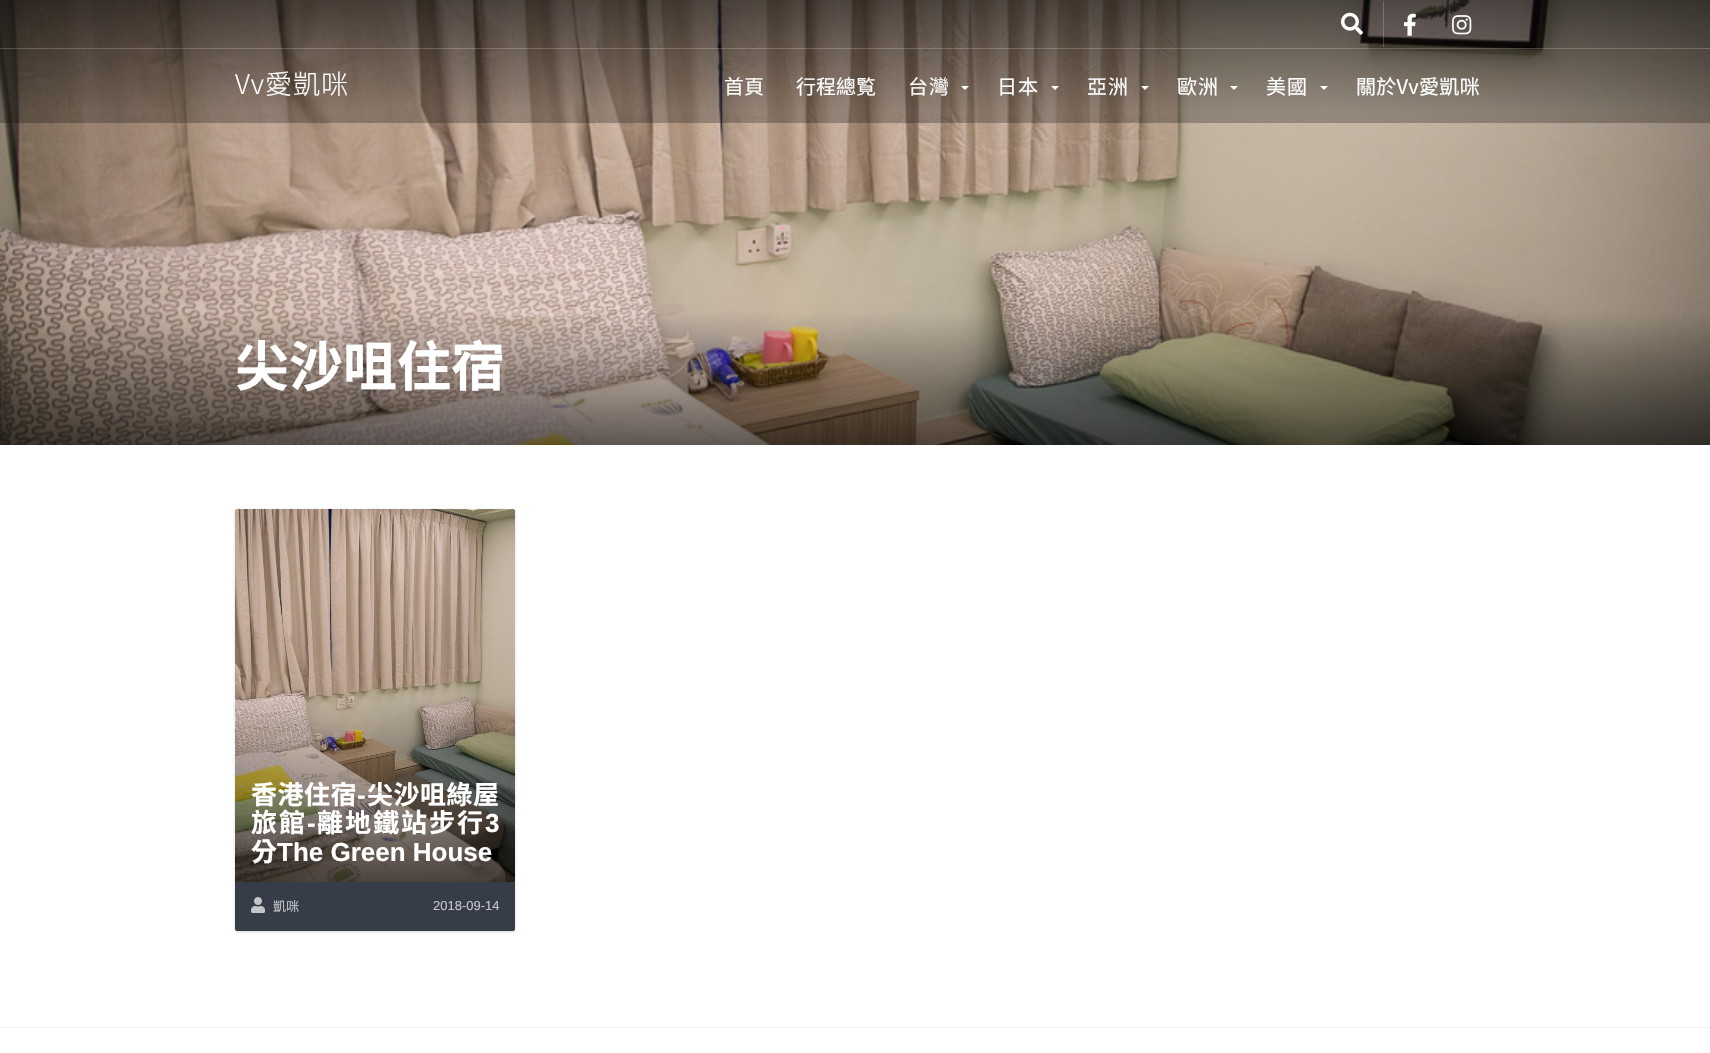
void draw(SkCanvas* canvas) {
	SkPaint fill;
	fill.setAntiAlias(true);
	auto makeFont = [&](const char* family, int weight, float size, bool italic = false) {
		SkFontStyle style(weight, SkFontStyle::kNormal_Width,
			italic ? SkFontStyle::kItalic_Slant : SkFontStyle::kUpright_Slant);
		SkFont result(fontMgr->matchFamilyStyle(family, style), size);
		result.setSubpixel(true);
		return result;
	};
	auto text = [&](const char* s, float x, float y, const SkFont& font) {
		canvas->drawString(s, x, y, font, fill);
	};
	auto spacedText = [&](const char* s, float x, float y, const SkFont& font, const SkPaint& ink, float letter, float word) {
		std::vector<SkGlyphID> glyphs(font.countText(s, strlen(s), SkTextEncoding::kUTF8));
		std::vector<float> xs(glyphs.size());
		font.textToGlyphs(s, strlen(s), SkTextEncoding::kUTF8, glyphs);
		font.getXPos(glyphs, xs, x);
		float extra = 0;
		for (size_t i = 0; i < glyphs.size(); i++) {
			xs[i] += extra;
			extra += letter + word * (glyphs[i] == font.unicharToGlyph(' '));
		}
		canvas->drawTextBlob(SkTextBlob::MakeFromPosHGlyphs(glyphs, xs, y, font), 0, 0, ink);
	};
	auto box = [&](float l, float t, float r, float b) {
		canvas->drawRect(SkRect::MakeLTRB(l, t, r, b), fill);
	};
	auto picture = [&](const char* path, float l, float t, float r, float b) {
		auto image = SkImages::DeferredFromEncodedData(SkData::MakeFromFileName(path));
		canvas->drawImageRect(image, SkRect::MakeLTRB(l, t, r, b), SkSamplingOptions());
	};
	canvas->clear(0xFFFFFFFF);
	picture("image3.png", 0, 0, 1710, 445);
	fill.setColor(0x42000000);
	box(0, 0, 1710, 123);
	fill.setColor(0x33FFFFFF);
	box(0, 48, 1710, 49);
	box(1383, 1, 1384, 47);
	picture("image0.png", 1341, 12, 1363, 35);
	picture("image1.png", 1404, 13, 1416, 36);
	picture("image2.png", 1452, 15, 1472, 35);
	fill.setColor(0xFFFFFFFF);
	canvas->drawPath(SkPathBuilder().moveTo(961, 86).lineTo(969, 86).lineTo(965, 90).close().detach(), fill);
	canvas->drawPath(SkPathBuilder().moveTo(1051, 86).lineTo(1059, 86).lineTo(1055, 90).close().detach(), fill);
	canvas->drawPath(SkPathBuilder().moveTo(1141, 86).lineTo(1149, 86).lineTo(1145, 90).close().detach(), fill);
	canvas->drawPath(SkPathBuilder().moveTo(1230, 86).lineTo(1238, 86).lineTo(1234, 90).close().detach(), fill);
	canvas->drawPath(SkPathBuilder().moveTo(1320, 86).lineTo(1328, 86).lineTo(1324, 90).close().detach(), fill);
	fill.setColor(0x26000000);
	fill.setMaskFilter(SkMaskFilter::MakeBlur(kNormal_SkBlurStyle, 1.5f));
	canvas->drawRoundRect(SkRect::MakeLTRB(235, 510, 515, 932), 2, 2, fill);
	fill.setMaskFilter(nullptr);
	picture("image4.png", 235, 509, 515, 882);
	{
		const SkColor colors[] = {0x08000000, 0xA8000000};
		const float stops[] = {0.5f, 1};
		const SkPoint ends[] = {{375, 509}, {375, 882}};
		fill.setShader(SkGradientShader::MakeLinear(ends, colors, stops, 2, SkTileMode::kClamp));
		fill.setAlpha(255);
	}
	box(235, 509, 515, 882);
	fill.setShader(nullptr);
	fill.setColor(0xFF363C48);
	canvas->drawPath(SkPathBuilder().moveTo(235, 882).lineTo(515, 882).lineTo(515, 929).cubicTo(515, 930, 514, 931, 513, 931).lineTo(237, 931).cubicTo(236, 931, 235, 930, 235, 929).close().detach(), fill);
	picture("image5.png", 251, 897, 265, 913);
	fill.setColor(0xFFF1F1F1);
	box(0, 1027, 1710, 1028);
	auto font1 = makeFont("Noto Sans TC", 300, 27);
	fill.setColor(0xFFFFFFFF);
	spacedText("Vv愛凱咪", 235, 94, font1, fill, 1, 0);
	auto font2 = makeFont("Noto Sans TC", 400, 20);
	text("首頁", 724, 94, font2);
	text("行程總覧", 796, 94, font2);
	spacedText("台灣", 908, 94, font2, fill, 1, 0);
	spacedText("日本", 997, 94, font2, fill, 1, 0);
	spacedText("亞洲", 1087, 94, font2, fill, 1, 0);
	spacedText("歐洲", 1177, 94, font2, fill, 1, 0);
	spacedText("美國", 1266, 94, font2, fill, 1, 0);
	spacedText("關於Vv愛凱咪", 1356, 94, font2, fill, 0.25f, 0);
	auto font3 = makeFont("Noto Sans TC", 700, 54);
	text("尖沙咀住宿", 235, 386, font3);
	auto font4 = makeFont("Noto Sans TC", 700, 26);
	spacedText("香港住宿", 251, 804, font4, fill, 0.5f, 0);
	auto font5 = makeFont("Liberation Sans", 700, 26);
	spacedText("-", 357, 804, font5, fill, 0.5f, 0);
	spacedText("尖沙咀綠屋", 367, 804, font4, fill, 0.5f, 0);
	spacedText("旅館", 251, 832, font4, fill, 2, 0);
	spacedText("-", 307, 832, font5, fill, 2, 0);
	spacedText("離地鐵站步行", 317, 832, font4, fill, 2, 0);
	spacedText("3", 485, 832, font5, fill, 2, 0);
	text("分", 251, 861, font4);
	text("The Green House", 277, 861, font5);
	auto font6 = makeFont("Noto Sans TC", 400, 13);
	fill.setColor(0xFFC3C5C8);
	text("凱咪", 273, 911, font6);
	auto font7 = makeFont("Liberation Sans", 400, 13);
	text("2018-09-14", 433, 910, font7);
}
